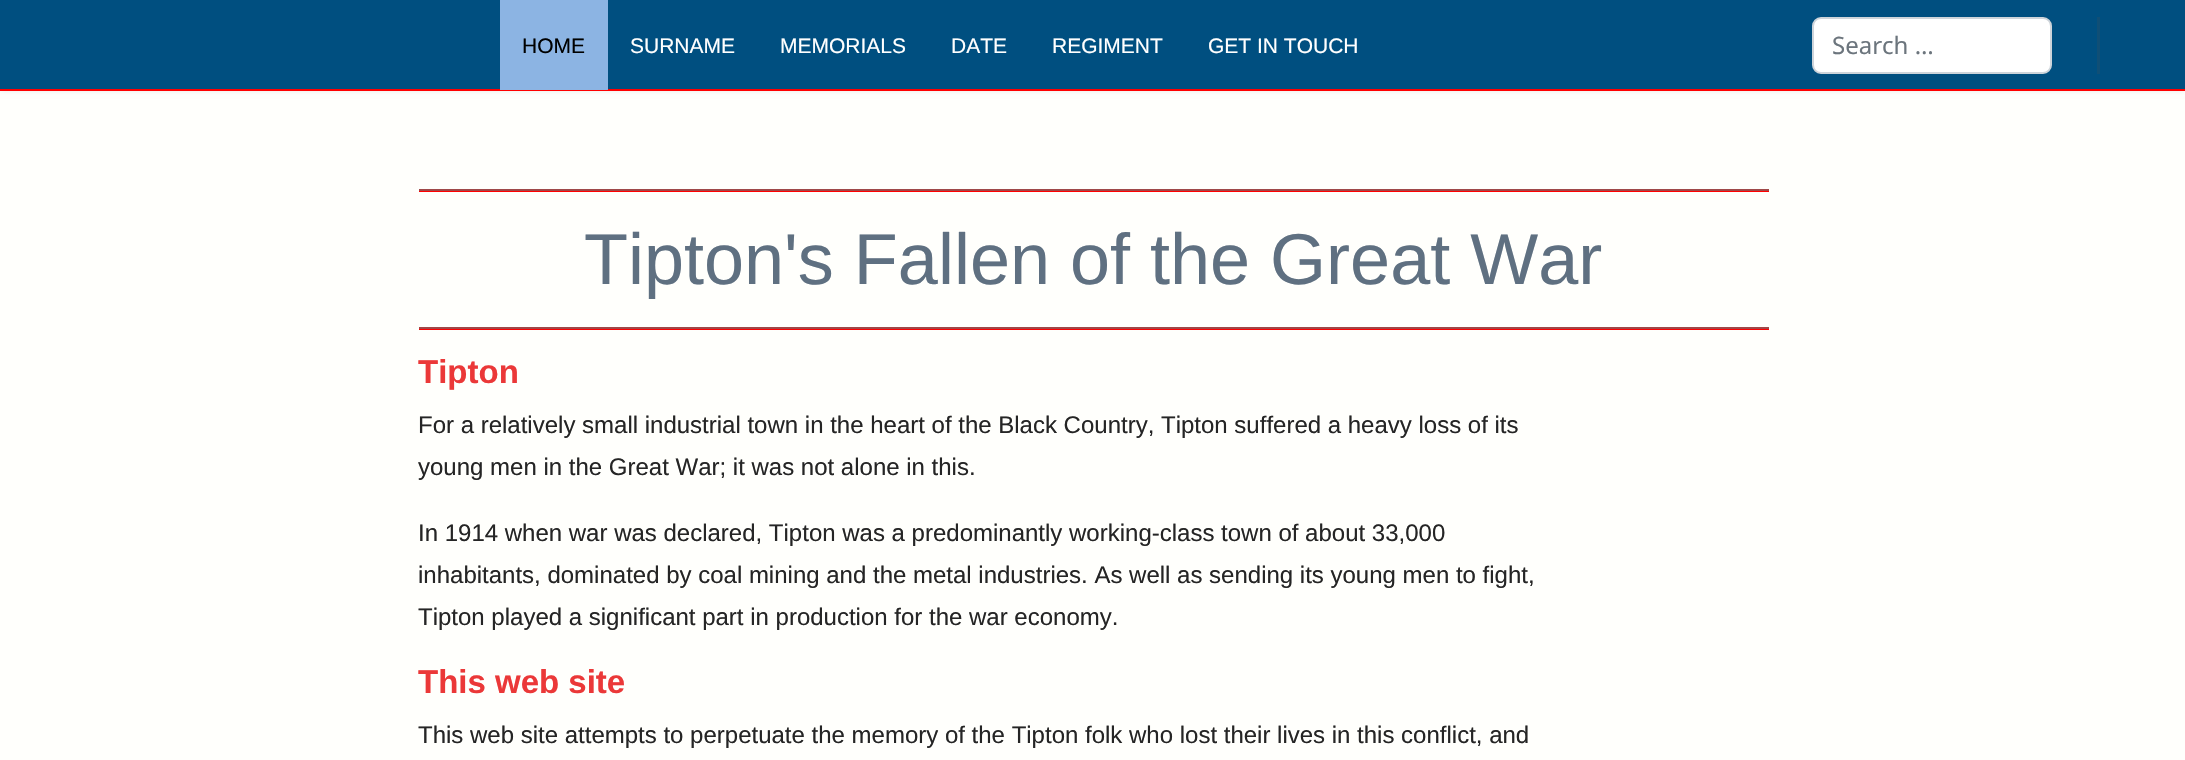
void draw(SkCanvas* canvas) {
	SkPaint fill;
	fill.setAntiAlias(true);
	auto makeFont = [&](const char* family, int weight, float size, bool italic = false) {
		SkFontStyle style(weight, SkFontStyle::kNormal_Width,
			italic ? SkFontStyle::kItalic_Slant : SkFontStyle::kUpright_Slant);
		SkFont result(fontMgr->matchFamilyStyle(family, style), size);
		result.setSubpixel(true);
		return result;
	};
	auto text = [&](const char* s, float x, float y, const SkFont& font) {
		canvas->drawString(s, x, y, font, fill);
	};
	auto box = [&](float l, float t, float r, float b) {
		canvas->drawRect(SkRect::MakeLTRB(l, t, r, b), fill);
	};
	canvas->clear(0xFFFFFFFC);
	fill.setColor(0x1A000000);
	fill.setMaskFilter(SkMaskFilter::MakeBlur(kNormal_SkBlurStyle, 3));
	canvas->drawRect(SkRect::MakeLTRB(0, 0, 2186, 90), fill);
	fill.setMaskFilter(nullptr);
	fill.setColor(0xFF004F80);
	box(0, 0, 2185, 89);
	fill.setColor(0xFFFF0000);
	box(0, 89, 2185, 91);
	fill.setColor(0xFF8CB4E3);
	box(500, 0, 608, 90);
	fill.setColor(0xFF104F76);
	box(2097, 17, 2100, 74);
	fill.setColor(0xFFFFFFFF);
	canvas->drawRoundRect(SkRect::MakeLTRB(1813, 18, 2051, 73), 8, 8, fill);
	fill.setStyle(SkPaint::kStroke_Style);
	fill.setStrokeWidth(2);
	fill.setColor(0xFFCED4DA);
	canvas->drawRoundRect(SkRect::MakeLTRB(1813, 18, 2051, 73), 8, 8, fill);
	fill.setStyle(SkPaint::kFill_Style);
	fill.setColor(0xFFFF0000);
	box(419, 191, 1769, 192);
	fill.setColor(0xFF9F4949);
	box(419, 189, 1769, 191);
	fill.setColor(0xFFFF0000);
	box(419, 329, 1769, 330);
	fill.setColor(0xFF9F4949);
	box(419, 327, 1769, 329);
	auto font1 = makeFont("Liberation Sans", 400, 21);
	fill.setColor(0xFF000000);
	text("HOME", 522, 53, font1);
	fill.setColor(0xFFFFFFFF);
	text("SURNAME", 630, 53, font1);
	text("MEMORIALS", 780, 53, font1);
	text("DATE", 951, 53, font1);
	text("REGIMENT", 1052, 53, font1);
	text("GET IN TOUCH", 1208, 53, font1);
	auto font2 = makeFont("Noto Sans", 400, 24);
	fill.setColor(0xFF6C757D);
	text("Search …", 1832, 54, font2);
	auto font3 = makeFont("Liberation Sans", 400, 72);
	fill.setColor(0xFF5F7081);
	text("Tipton's Fallen of the Great War", 584, 284, font3);
	auto font4 = makeFont("Liberation Sans", 700, 33);
	fill.setColor(0xFFEB3838);
	text("Tipton", 418, 383, font4);
	auto font5 = makeFont("Liberation Sans", 400, 24);
	fill.setColor(0xFF252525);
	text("For a relatively small industrial town in the heart of the Black Country, Tipton suffered a heavy loss of its", 418, 433, font5);
	text("young men in the Great War; it was not alone in this.", 418, 475, font5);
	text("In 1914 when war was declared, Tipton was a predominantly working-class town of about 33,000", 418, 541, font5);
	text("inhabitants, dominated by coal mining and the metal industries. As well as sending its young men to fight,", 418, 583, font5);
	text("Tipton played a significant part in production for the war economy.", 418, 625, font5);
	fill.setColor(0xFFEB3838);
	text("This web site", 418, 693, font4);
	fill.setColor(0xFF252525);
	text("This web site attempts to perpetuate the memory of the Tipton folk who lost their lives in this conflict, and", 418, 743, font5);
}
